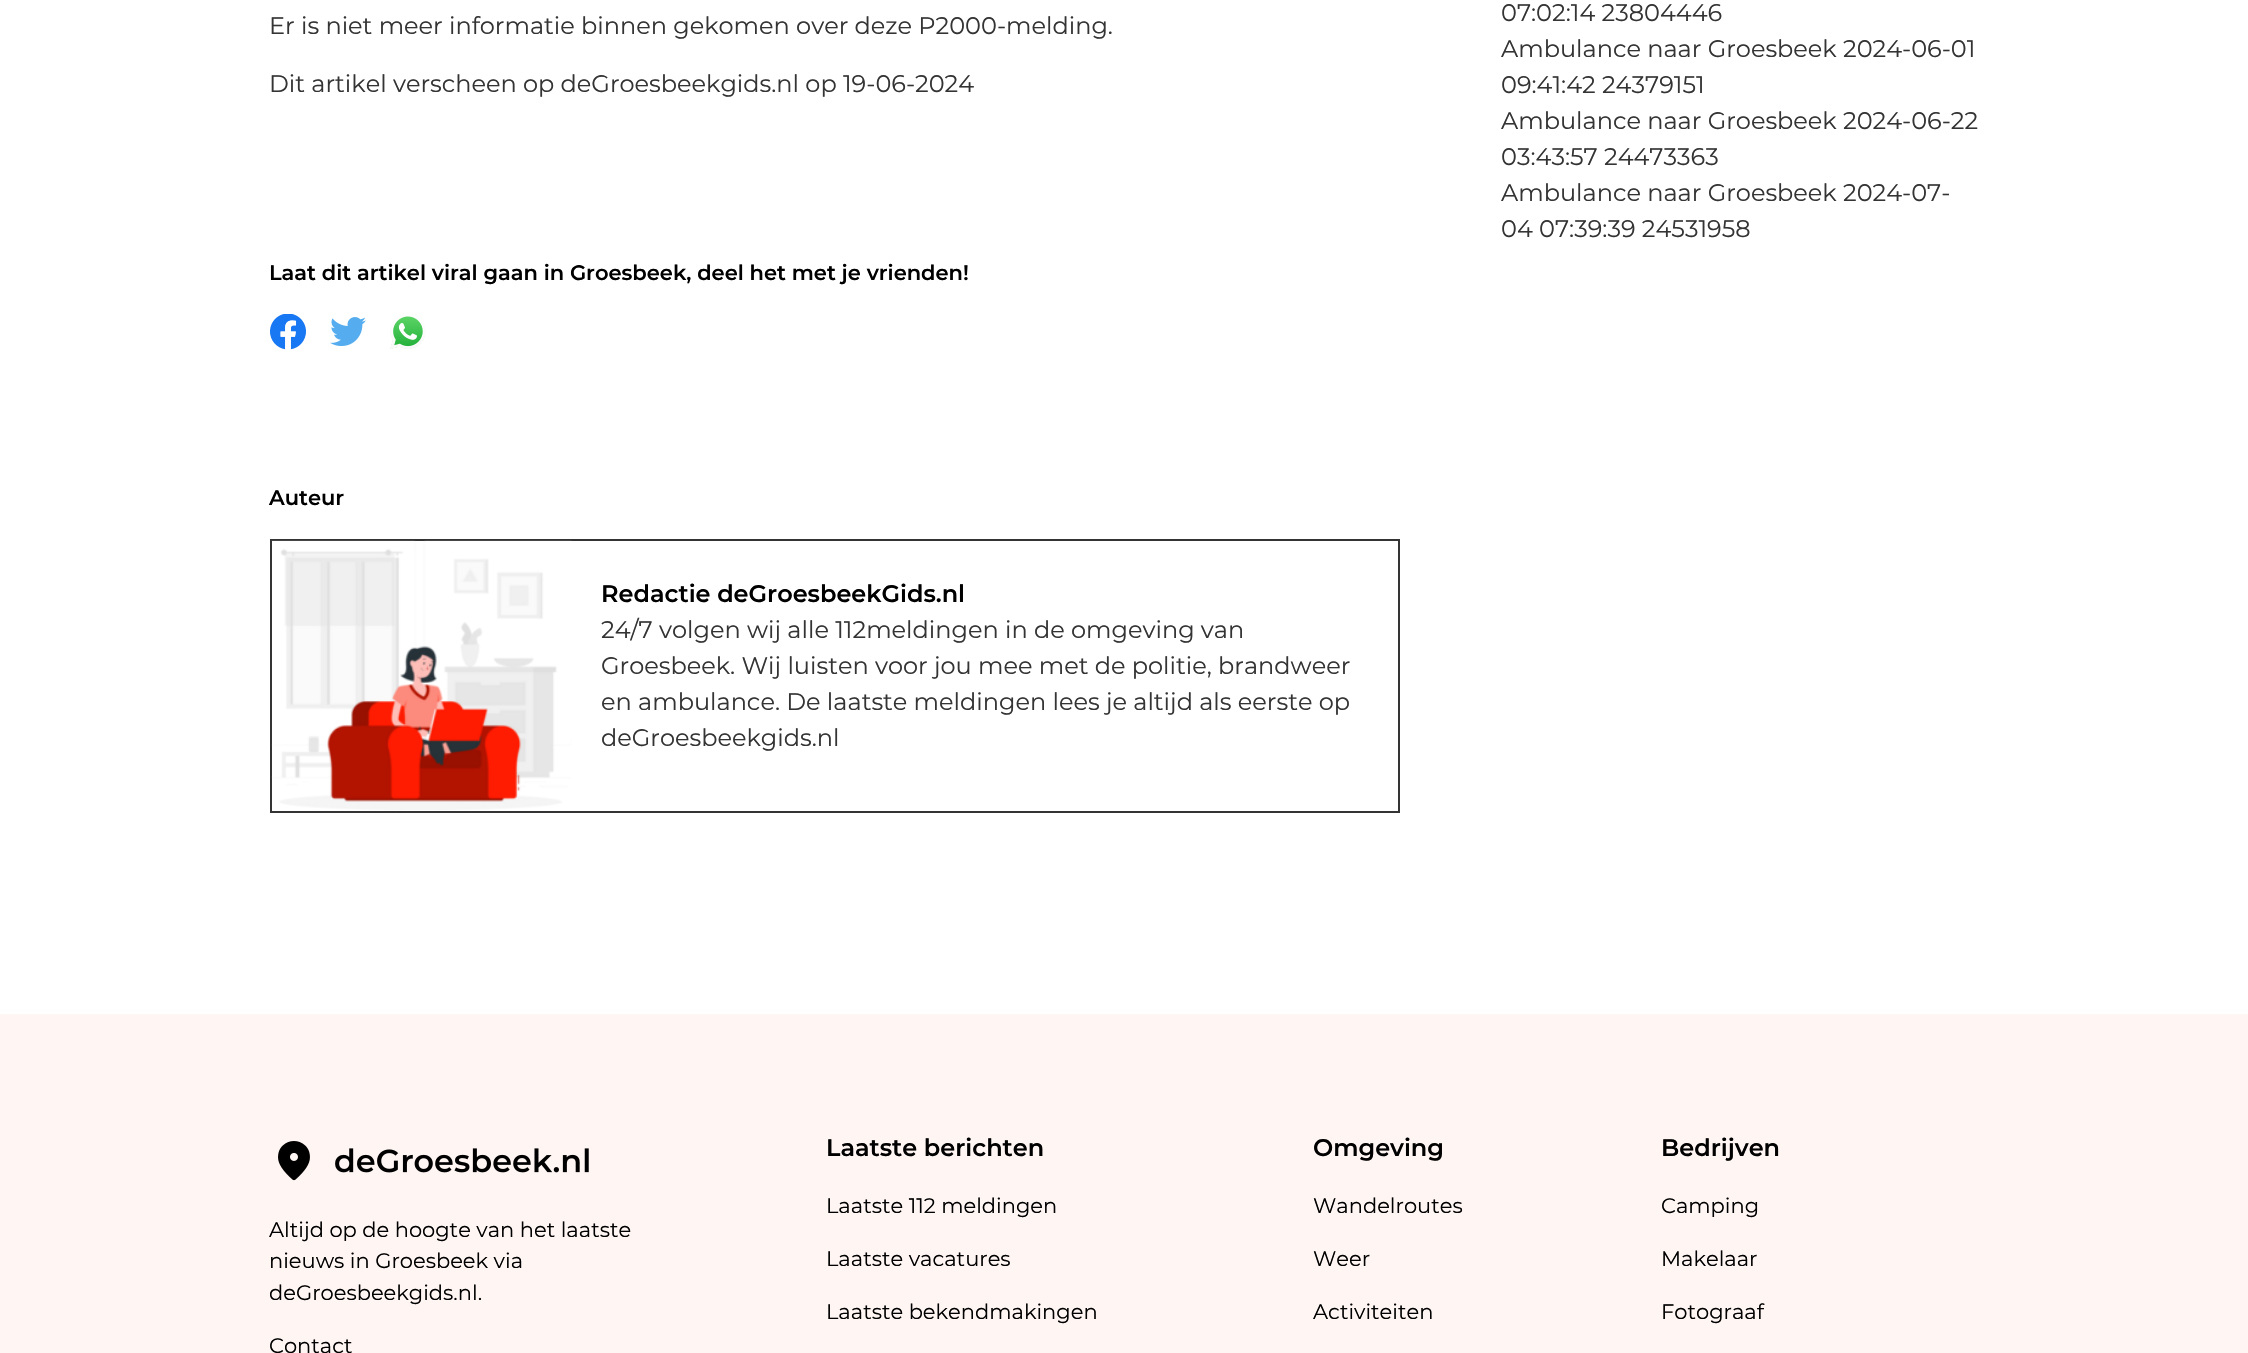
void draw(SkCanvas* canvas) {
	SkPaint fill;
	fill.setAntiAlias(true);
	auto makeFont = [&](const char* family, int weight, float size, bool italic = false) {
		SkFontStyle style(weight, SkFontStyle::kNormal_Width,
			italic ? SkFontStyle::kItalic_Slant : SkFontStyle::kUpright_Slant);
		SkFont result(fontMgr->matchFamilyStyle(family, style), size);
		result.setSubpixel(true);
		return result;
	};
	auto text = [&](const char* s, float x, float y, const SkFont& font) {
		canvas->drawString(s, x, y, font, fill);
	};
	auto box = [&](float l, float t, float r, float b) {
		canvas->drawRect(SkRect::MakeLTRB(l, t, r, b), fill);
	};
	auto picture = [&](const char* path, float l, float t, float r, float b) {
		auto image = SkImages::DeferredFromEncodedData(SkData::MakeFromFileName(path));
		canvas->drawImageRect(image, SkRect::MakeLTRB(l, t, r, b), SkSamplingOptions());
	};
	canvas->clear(0xFFFFFFFF);
	picture("image0.png", 270, 314, 306, 350);
	picture("image1.png", 330, 317, 366, 346);
	picture("image2.png", 390, 314, 426, 349);
	fill.setStyle(SkPaint::kStroke_Style);
	fill.setStrokeWidth(2);
	fill.setColor(0xFF343434);
	canvas->drawRect(SkRect::MakeLTRB(271, 540, 1399, 812), fill);
	picture("image3.png", 271, 540, 572, 810);
	fill.setStyle(SkPaint::kFill_Style);
	fill.setColor(0xFFFFF5F3);
	box(0, 1014, 2248, 1353);
	picture("image4.png", 278, 1141, 589, 1181);
	auto font1 = makeFont("Montserrat", 400, 24);
	fill.setColor(0xFF343434);
	text("Er is niet meer informatie binnen gekomen over deze P2000-melding.", 269, 34, font1);
	text("Dit artikel verscheen op deGroesbeekgids.nl op 19-06-2024", 269, 92, font1);
	auto font2 = makeFont("Montserrat", 600, 21);
	fill.setColor(0xFF000000);
	text("Laat dit artikel viral gaan in Groesbeek, deel het met je vrienden!", 269, 280, font2);
	text("Auteur", 269, 505, font2);
	auto font3 = makeFont("Montserrat", 600, 24);
	text("Redactie deGroesbeekGids.nl", 601, 602, font3);
	fill.setColor(0xFF343434);
	text("24/7 volgen wij alle 112meldingen in de omgeving van", 601, 638, font1);
	text("Groesbeek. Wij luisten voor jou mee met de politie, brandweer", 601, 674, font1);
	text("en ambulance. De laatste meldingen lees je altijd als eerste op", 601, 710, font1);
	text("deGroesbeekgids.nl", 601, 746, font1);
	text("07:02:14 23804446", 1501, 21, font1);
	text("Ambulance naar Groesbeek 2024-06-01", 1501, 57, font1);
	text("09:41:42 24379151", 1501, 93, font1);
	text("Ambulance naar Groesbeek 2024-06-22", 1501, 129, font1);
	text("03:43:57 24473363", 1501, 165, font1);
	text("Ambulance naar Groesbeek 2024-07-", 1501, 201, font1);
	text("04 07:39:39 24531958", 1501, 237, font1);
	auto font4 = makeFont("Montserrat", 400, 21);
	fill.setColor(0xFF000000);
	text("Altijd op de hoogte van het laatste", 269, 1237, font4);
	text("nieuws in Groesbeek via", 269, 1268, font4);
	text("deGroesbeekgids.nl.", 269, 1300, font4);
	text("Contact", 269, 1353, font4);
	text("Laatste berichten", 826, 1156, font3);
	text("Laatste 112 meldingen", 826, 1213, font4);
	text("Laatste vacatures", 826, 1266, font4);
	text("Laatste bekendmakingen", 826, 1319, font4);
	text("Omgeving", 1313, 1156, font3);
	text("Wandelroutes", 1313, 1213, font4);
	text("Weer", 1313, 1266, font4);
	text("Activiteiten", 1313, 1319, font4);
	text("Bedrijven", 1661, 1156, font3);
	text("Camping", 1661, 1213, font4);
	text("Makelaar", 1661, 1266, font4);
	text("Fotograaf", 1661, 1319, font4);
}
